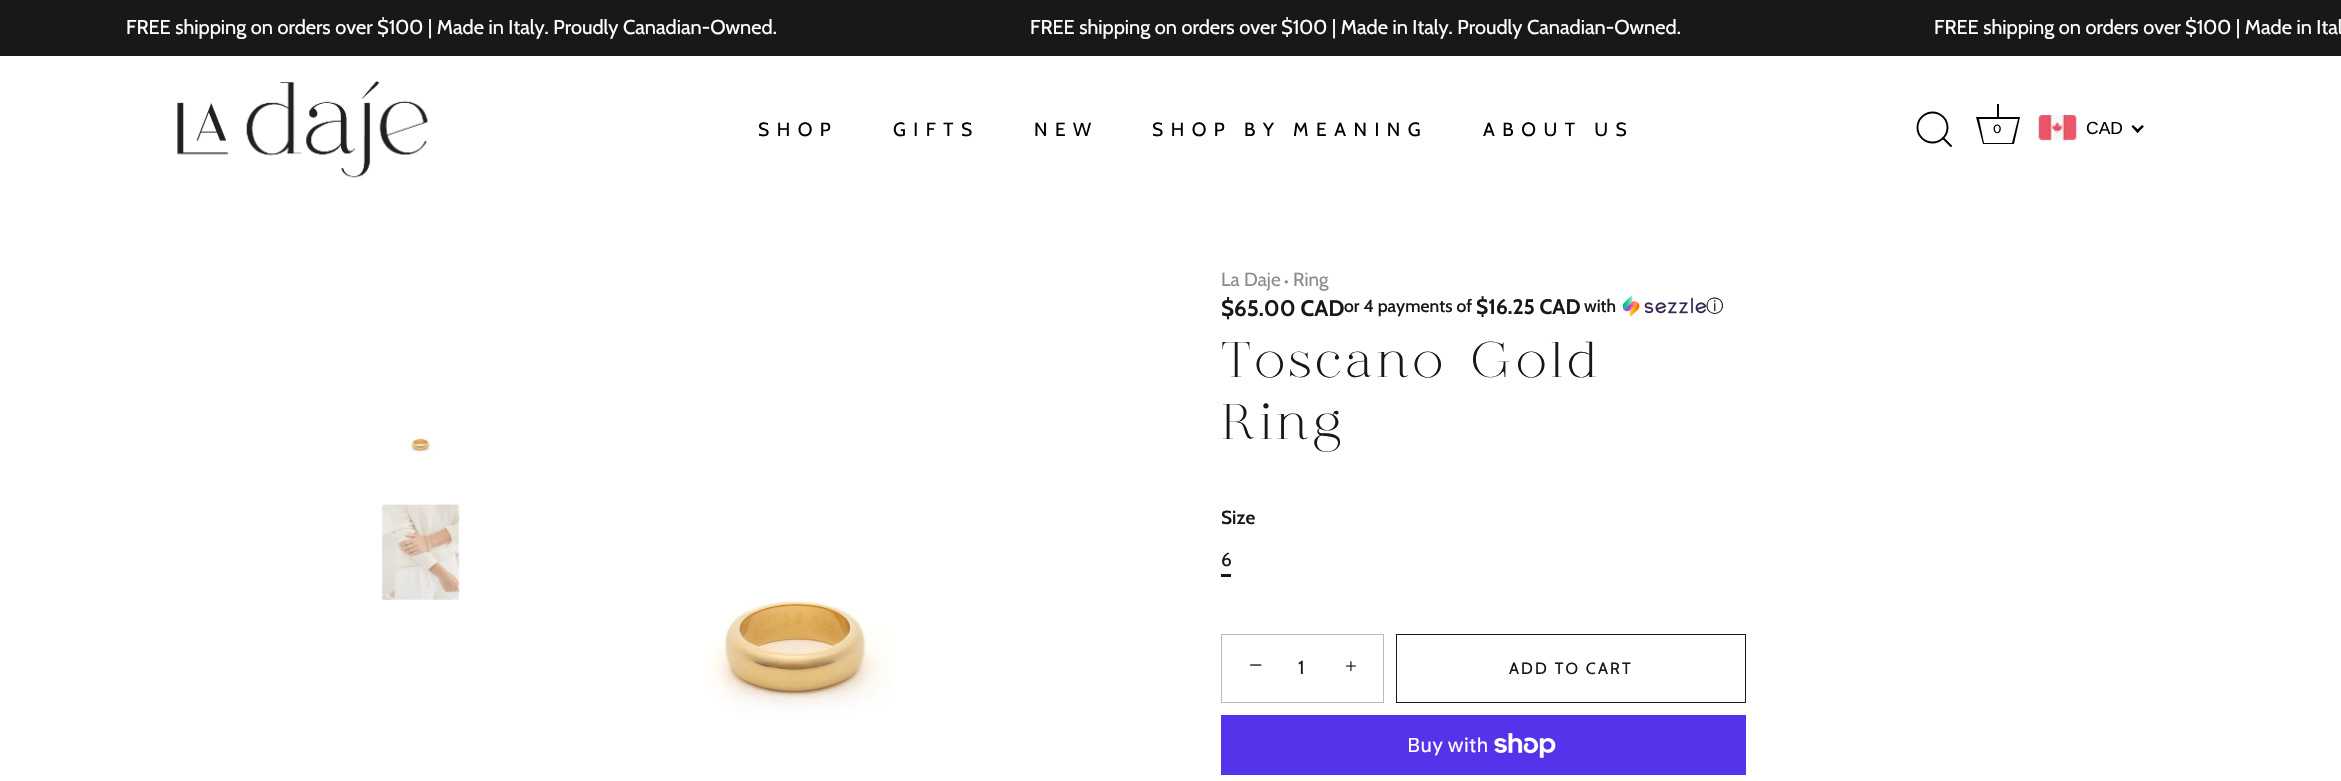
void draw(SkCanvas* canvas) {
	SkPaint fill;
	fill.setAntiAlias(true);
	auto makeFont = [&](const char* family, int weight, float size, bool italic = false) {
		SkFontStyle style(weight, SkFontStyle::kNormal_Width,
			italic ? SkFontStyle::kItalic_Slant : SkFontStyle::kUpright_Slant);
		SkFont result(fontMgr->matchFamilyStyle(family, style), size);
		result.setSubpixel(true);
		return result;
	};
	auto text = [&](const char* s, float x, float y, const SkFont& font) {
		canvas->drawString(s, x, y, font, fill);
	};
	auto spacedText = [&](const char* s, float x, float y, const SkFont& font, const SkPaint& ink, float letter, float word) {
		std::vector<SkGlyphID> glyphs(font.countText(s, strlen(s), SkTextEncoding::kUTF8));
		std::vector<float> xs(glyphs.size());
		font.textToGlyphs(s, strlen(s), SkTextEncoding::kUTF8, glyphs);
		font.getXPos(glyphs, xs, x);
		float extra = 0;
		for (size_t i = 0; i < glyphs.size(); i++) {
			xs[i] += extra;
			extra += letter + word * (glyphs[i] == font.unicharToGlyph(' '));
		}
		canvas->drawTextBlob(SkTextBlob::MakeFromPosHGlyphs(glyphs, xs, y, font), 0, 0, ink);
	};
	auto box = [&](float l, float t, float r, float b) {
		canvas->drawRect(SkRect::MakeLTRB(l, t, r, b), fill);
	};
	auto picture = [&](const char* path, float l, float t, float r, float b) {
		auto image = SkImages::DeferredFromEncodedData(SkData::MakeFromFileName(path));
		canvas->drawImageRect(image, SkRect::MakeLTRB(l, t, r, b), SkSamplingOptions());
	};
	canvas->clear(0xFFFFFFFF);
	fill.setColor(0xFF181818);
	box(0, 0, 2341, 56);
	picture("image0.png", 177, 81, 428, 178);
	fill.setStyle(SkPaint::kStroke_Style);
	fill.setStrokeWidth(1.9f);
	fill.setColor(0xFF000000);
	canvas->drawCircle(1932.5f, 127.5f, 15, fill);
	fill.setStrokeCap(SkPaint::kRound_Cap);
	fill.setStrokeJoin(SkPaint::kRound_Join);
	canvas->drawPath(SkPathBuilder().moveTo(1951, 146).lineTo(1943, 138).detach(), fill);
	fill.setStyle(SkPaint::kFill_Style);
	box(1997, 104, 1999, 117);
	canvas->drawPath(SkPathBuilder().moveTo(2018, 119).lineTo(2012, 143).lineTo(1984, 143).lineTo(1979, 119).lineTo(2018, 119).moveTo(2020, 117).lineTo(1976, 117).lineTo(1983, 144).lineTo(2014, 144).close().detach(), fill);
	picture("image1.png", 2038, 115, 2077, 141);
	canvas->drawPath(SkPathBuilder().moveTo(2142, 125).lineTo(2144, 126.5f).lineTo(2137.5f, 133).lineTo(2136, 131).close().detach(), fill);
	canvas->drawPath(SkPathBuilder().moveTo(2133, 125).lineTo(2139.5f, 131).lineTo(2137.5f, 133).lineTo(2131.5f, 126.5f).close().detach(), fill);
	picture("image2.png", 704, 601, 892, 713);
	picture("image3.png", 1623, 295, 1706, 317);
	picture("image4.png", 409, 438, 433, 453);
	picture("image5.png", 382, 504, 460, 600);
	fill.setColor(0xFF181818);
	box(1221, 574, 1231, 577);
	fill.setStyle(SkPaint::kStroke_Style);
	fill.setStrokeWidth(1);
	fill.setStrokeCap(SkPaint::kButt_Cap);
	fill.setStrokeJoin(SkPaint::kMiter_Join);
	fill.setColor(0xFFBBBBBB);
	canvas->drawRect(SkRect::MakeLTRB(1221.5f, 634.5f, 1383.5f, 702.5f), fill);
	fill.setColor(0xFF181818);
	canvas->drawRect(SkRect::MakeLTRB(1396.5f, 634.5f, 1745.5f, 702.5f), fill);
	fill.setStyle(SkPaint::kFill_Style);
	fill.setColor(0xFF5433EB);
	box(1221, 715, 1746, 775);
	picture("image6.png", 1494, 733, 1556, 758);
	auto font1 = makeFont("Cabin", 400, 20);
	fill.setColor(0xFFFFFFFF);
	text("FREE shipping on orders over $100 | Made in Italy. Proudly Canadian-Owned.", 126, 34, font1);
	text("FREE shipping on orders over $100 | Made in Italy. Proudly Canadian-Owned.", 1030, 34, font1);
	text("FREE shipping on orders over $100 | Made in Ital", 1934, 34, font1);
	auto font2 = makeFont("Cabin", 400, 19.1f);
	fill.setColor(0xFF000000);
	spacedText("SHOP", 758, 136, font2, fill, 7.5f, 0);
	spacedText("GIFTS", 893, 136, font2, fill, 7.5f, 0);
	spacedText("NEW", 1034, 136, font2, fill, 7.5f, 0);
	spacedText("SHOP BY MEANING", 1152, 136, font2, fill, 7.5f, 0);
	spacedText("ABOUT US", 1483, 136, font2, fill, 7.5f, 0);
	auto font3 = makeFont("Cabin", 400, 12);
	text("0", 1993, 133, font3);
	auto font4 = makeFont("Liberation Sans", 400, 17.5f);
	text("CAD", 2086, 134, font4);
	auto font5 = makeFont("Cabin", 400, 19);
	fill.setColor(0xFF8C8C8C);
	text("La Daje", 1221, 286, font5);
	auto font6 = makeFont("Cabin", 400, 15);
	text("•", 1284, 286, font6);
	text("Ring", 1293, 286, font5);
	auto font7 = makeFont("Cabin", 700, 22.5f);
	fill.setColor(0xFF181818);
	text("$65.00 CAD", 1221, 316, font7);
	auto font8 = makeFont("Cabin", 500, 17.5f);
	text("or 4 payments of", 1344, 312, font8);
	auto font9 = makeFont("Cabin", 700, 21);
	text("$16.25 CAD", 1476, 314, font9);
	text("with", 1584, 312, font8);
	auto font10 = makeFont("WenQuanYi Zen Hei", 500, 17.5f);
	text("ⓘ", 1706, 312, font10);
	auto font11 = makeFont("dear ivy", 400, 50);
	spacedText("Toscano Gold", 1221, 377, font11, fill, 3.75f, 0);
	spacedText("Ring", 1221, 439, font11, fill, 3.75f, 0);
	auto font12 = makeFont("Cabin", 600, 19);
	text("Size", 1221, 524, font12);
	text("6", 1221, 566, font5);
	auto font13 = makeFont("Liberation Serif", 400, 24);
	text("−", 1249, 673, font13);
	spacedText("1", 1298, 674, font5, fill, 1, 0);
	auto font14 = makeFont("Liberation Serif", 400, 21);
	text("+", 1345, 673, font14);
	auto font15 = makeFont("Cabin", 400, 16.25f);
	spacedText("ADD TO CART", 1509, 674, font15, fill, 2.1f, 0);
	auto font16 = makeFont("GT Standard", 400, 20);
	fill.setColor(0xFFFFFFFF);
	text("Buy with", 1407, 752, font16);
}
